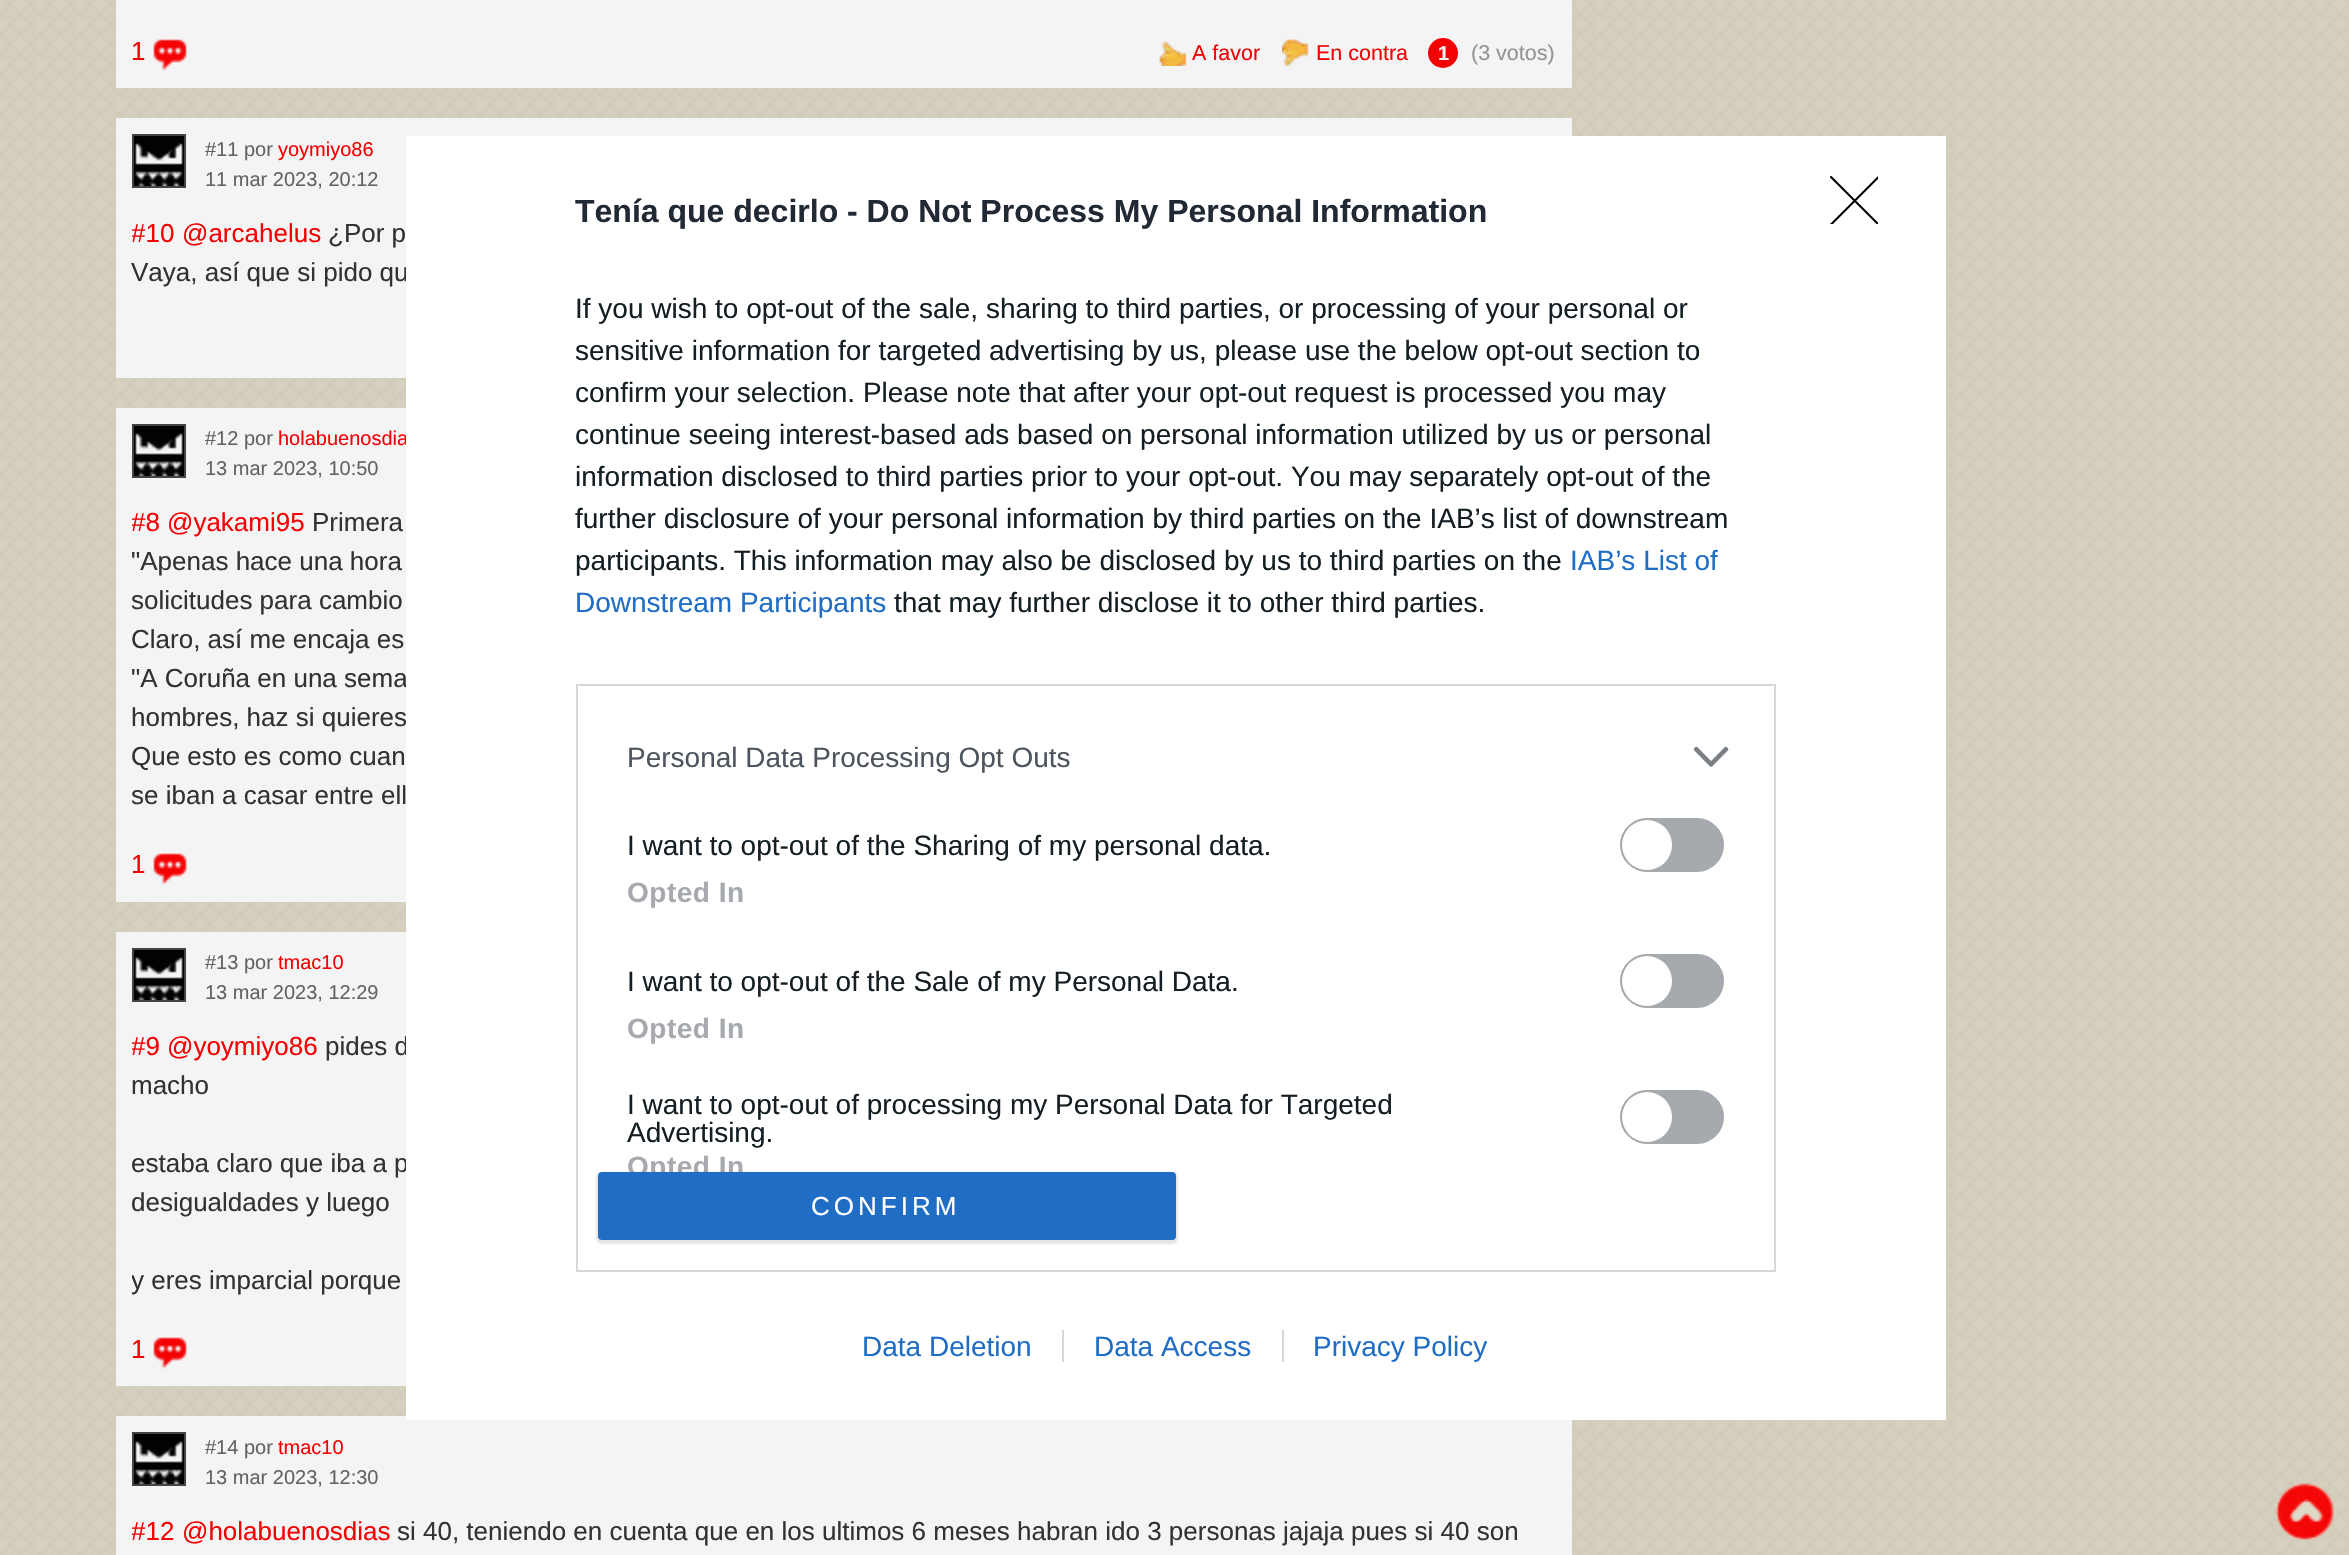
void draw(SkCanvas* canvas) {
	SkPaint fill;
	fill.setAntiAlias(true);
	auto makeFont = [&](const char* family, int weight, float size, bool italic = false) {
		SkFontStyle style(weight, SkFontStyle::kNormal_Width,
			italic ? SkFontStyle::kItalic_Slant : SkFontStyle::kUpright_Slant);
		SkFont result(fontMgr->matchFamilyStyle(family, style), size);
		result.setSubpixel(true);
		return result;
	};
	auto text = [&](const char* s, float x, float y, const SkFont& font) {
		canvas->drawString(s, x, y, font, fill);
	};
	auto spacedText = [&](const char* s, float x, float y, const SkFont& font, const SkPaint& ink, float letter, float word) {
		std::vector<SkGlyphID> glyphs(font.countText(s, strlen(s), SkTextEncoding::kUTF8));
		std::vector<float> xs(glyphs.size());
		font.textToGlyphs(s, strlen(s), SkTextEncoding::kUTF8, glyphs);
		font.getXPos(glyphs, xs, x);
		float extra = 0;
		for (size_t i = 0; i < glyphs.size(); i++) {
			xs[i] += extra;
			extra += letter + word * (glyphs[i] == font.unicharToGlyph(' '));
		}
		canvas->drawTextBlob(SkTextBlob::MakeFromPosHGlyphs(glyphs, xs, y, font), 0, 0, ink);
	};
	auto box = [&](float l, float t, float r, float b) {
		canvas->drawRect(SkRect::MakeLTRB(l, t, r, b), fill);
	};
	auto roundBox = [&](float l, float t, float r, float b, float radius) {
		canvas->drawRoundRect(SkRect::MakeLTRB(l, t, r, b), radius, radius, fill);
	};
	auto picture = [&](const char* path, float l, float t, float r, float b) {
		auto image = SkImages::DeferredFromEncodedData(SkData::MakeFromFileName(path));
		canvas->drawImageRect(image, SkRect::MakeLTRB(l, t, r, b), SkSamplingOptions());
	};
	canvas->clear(0xFFFFFFFF);
	picture("image0.png", 0, 0, 2349, 1555);
	fill.setColor(0xFFF4F4F5);
	box(116, 0, 1572, 88);
	picture("image1.png", 153, 39, 187, 71);
	picture("image2.png", 1159, 41, 1187, 66);
	picture("image3.png", 1282, 39, 1309, 67);
	fill.setColor(0xFFF40203);
	canvas->drawCircle(1443, 53, 15, fill);
	fill.setColor(0xFFF4F4F5);
	box(116, 118, 1572, 378);
	fill.setStyle(SkPaint::kStroke_Style);
	fill.setStrokeWidth(2);
	fill.setColor(0xFF424343);
	canvas->drawRect(SkRect::MakeLTRB(133, 135, 185, 187), fill);
	picture("image4.png", 134, 136, 184, 186);
	fill.setStyle(SkPaint::kFill_Style);
	fill.setColor(0xFFF4F4F5);
	box(116, 408, 406, 902);
	fill.setStyle(SkPaint::kStroke_Style);
	fill.setColor(0xFF424343);
	canvas->drawRect(SkRect::MakeLTRB(133, 425, 185, 477), fill);
	picture("image4.png", 134, 426, 184, 476);
	picture("image1.png", 153, 853, 187, 885);
	fill.setStyle(SkPaint::kFill_Style);
	fill.setColor(0xFFF4F4F5);
	box(116, 932, 406, 1386);
	fill.setStyle(SkPaint::kStroke_Style);
	fill.setColor(0xFF424343);
	canvas->drawRect(SkRect::MakeLTRB(133, 949, 185, 1001), fill);
	picture("image4.png", 134, 950, 184, 1000);
	picture("image1.png", 153, 1337, 187, 1369);
	fill.setStyle(SkPaint::kFill_Style);
	fill.setColor(0xFFF4F4F5);
	box(116, 1416, 1572, 1555);
	fill.setStyle(SkPaint::kStroke_Style);
	fill.setColor(0xFF424343);
	canvas->drawRect(SkRect::MakeLTRB(133, 1433, 185, 1485), fill);
	picture("image4.png", 134, 1434, 184, 1484);
	picture("image6.png", 2275, 1483, 2334, 1540);
	auto font1 = makeFont("Liberation Sans", 400, 26);
	fill.setStyle(SkPaint::kFill_Style);
	fill.setColor(0xFFF40203);
	text("1", 131, 60, font1);
	auto font2 = makeFont("Liberation Sans", 400, 21.5f);
	text("A favor", 1192, 60, font2);
	text("En contra", 1316, 60, font2);
	auto font3 = makeFont("Liberation Sans", 700, 20);
	fill.setColor(0xFFF4F4F5);
	text("1", 1438, 60, font3);
	fill.setColor(0xFF939394);
	text("(3 votos)", 1471, 60, font2);
	auto font4 = makeFont("Liberation Sans", 400, 20);
	fill.setColor(0xFF636363);
	text("#11 por", 205, 156, font4);
	fill.setColor(0xFFF40203);
	text("yoymiyo86", 278, 156, font4);
	fill.setColor(0xFF636363);
	text("11 mar 2023, 20:12", 205, 186, font4);
	canvas->save();
	canvas->clipRect(SkRect::MakeLTRB(132, 194, 1556, 292));
	fill.setColor(0xFFF40203);
	text("#10", 131, 242, font1);
	canvas->restore();
	text("@arcahelus", 182, 242, font1);
	fill.setColor(0xFF323233);
	text("¿Por p", 328, 242, font1);
	text("Vaya, así que si pido qu", 131, 281, font1);
	fill.setColor(0xFF636363);
	text("#12 por", 205, 445, font4);
	fill.setColor(0xFFF40203);
	text("holabuenosdia", 278, 445, font4);
	fill.setColor(0xFF636363);
	text("13 mar 2023, 10:50", 205, 475, font4);
	canvas->save();
	canvas->clipRect(SkRect::MakeLTRB(132, 484, 1556, 816));
	fill.setColor(0xFFF40203);
	text("#8", 131, 531, font1);
	canvas->restore();
	text("@yakami95", 167, 531, font1);
	fill.setColor(0xFF323233);
	text("Primera", 312, 531, font1);
	text("\"Apenas hace una hora", 131, 570, font1);
	text("solicitudes para cambio", 131, 609, font1);
	text("Claro, así me encaja es", 131, 648, font1);
	text("\"A Coruña en una sema", 131, 687, font1);
	text("hombres, haz si quieres", 131, 726, font1);
	text("Que esto es como cuan", 131, 765, font1);
	text("se iban a casar entre ell", 131, 804, font1);
	fill.setColor(0xFFF40203);
	text("1", 131, 873, font1);
	fill.setColor(0xFF636363);
	text("#13 por", 205, 969, font4);
	fill.setColor(0xFFF40203);
	text("tmac10", 278, 969, font4);
	fill.setColor(0xFF636363);
	text("13 mar 2023, 12:29", 205, 999, font4);
	canvas->save();
	canvas->clipRect(SkRect::MakeLTRB(132, 1008, 1556, 1300));
	fill.setColor(0xFFF40203);
	text("#9", 131, 1055, font1);
	canvas->restore();
	text("@yoymiyo86", 167, 1055, font1);
	fill.setColor(0xFF323233);
	text("pides d", 325, 1055, font1);
	text("macho", 131, 1094, font1);
	text("estaba claro que iba a p", 131, 1172, font1);
	text("desigualdades y luego", 131, 1211, font1);
	canvas->save();
	canvas->clipRect(SkRect::MakeLTRB(132, 1008, 1556, 1300));
	text("y eres imparcial porque", 131, 1289, font1);
	canvas->restore();
	fill.setColor(0xFFF40203);
	text("1", 131, 1358, font1);
	fill.setColor(0xFF636363);
	text("#14 por", 205, 1454, font4);
	fill.setColor(0xFFF40203);
	text("tmac10", 278, 1454, font4);
	fill.setColor(0xFF636363);
	text("13 mar 2023, 12:30", 205, 1484, font4);
	canvas->save();
	canvas->clipRect(SkRect::MakeLTRB(132, 1492, 1556, 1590));
	fill.setColor(0xFFF40203);
	text("#12", 131, 1540, font1);
	canvas->restore();
	text("@holabuenosdias", 182, 1540, font1);
	fill.setColor(0xFF323233);
	text("si 40, teniendo en cuenta que en los ultimos 6 meses habran ido 3 personas jajaja pues si 40 son", 397, 1540, font1);
	fill.setColor(0xFFFFFFFF);
	box(406, 136, 1946, 1420);
	auto font5 = makeFont("Liberation Sans", 700, 32);
	fill.setColor(0xFF212934);
	text("Tenía que decirlo - Do Not Process My Personal Information", 575, 222, font5);
	auto font6 = makeFont("Liberation Sans", 400, 28);
	fill.setColor(0xFF141E23);
	text("If you wish to opt-out of the sale, sharing to third parties, or processing of your personal or", 575, 318, font6);
	text("sensitive information for targeted advertising by us, please use the below opt-out section to", 575, 360, font6);
	text("confirm your selection. Please note that after your opt-out request is processed you may", 575, 402, font6);
	text("continue seeing interest-based ads based on personal information utilized by us or personal", 575, 444, font6);
	text("information disclosed to third parties prior to your opt-out. You may separately opt-out of the", 575, 486, font6);
	text("further disclosure of your personal information by third parties on the IAB’s list of downstream", 575, 528, font6);
	text("participants. This information may also be disclosed by us to third parties on the", 575, 570, font6);
	fill.setColor(0xFF206DC5);
	text("IAB’s List of", 1570, 570, font6);
	text("Downstream Participants", 575, 612, font6);
	fill.setColor(0xFF141E23);
	text("that may further disclose it to other third parties.", 894, 612, font6);
	fill.setStyle(SkPaint::kStroke_Style);
	fill.setColor(0xFFD8D8D8);
	canvas->drawRect(SkRect::MakeLTRB(577, 685, 1775, 1271), fill);
	fill.setStyle(SkPaint::kFill_Style);
	fill.setColor(0xFF4D545D);
	text("Personal Data Processing Opt Outs", 627, 767, font6);
	picture("image5.png", 1693, 746, 1729, 767);
	fill.setColor(0xFF141E23);
	text("I want to opt-out of the Sharing of my personal data.", 627, 855, font6);
	fill.setColor(0xFFA6A9AE);
	canvas->drawRoundRect(SkRect::MakeLTRB(1621, 819, 1723, 871), 26, 26, fill);
	fill.setStyle(SkPaint::kStroke_Style);
	canvas->drawRoundRect(SkRect::MakeLTRB(1621, 819, 1723, 871), 26, 26, fill);
	fill.setStyle(SkPaint::kFill_Style);
	fill.setColor(0xFFFFFFFF);
	canvas->drawCircle(1647, 845, 25, fill);
	auto font7 = makeFont("Liberation Sans", 700, 28);
	fill.setColor(0xFFA6A9AE);
	spacedText("Opted In", 627, 902, font7, fill, 0.5f, 0);
	fill.setColor(0xFF141E23);
	text("I want to opt-out of the Sale of my Personal Data.", 627, 991, font6);
	fill.setColor(0xFFA6A9AE);
	canvas->drawRoundRect(SkRect::MakeLTRB(1621, 955, 1723, 1007), 26, 26, fill);
	fill.setStyle(SkPaint::kStroke_Style);
	canvas->drawRoundRect(SkRect::MakeLTRB(1621, 955, 1723, 1007), 26, 26, fill);
	fill.setStyle(SkPaint::kFill_Style);
	fill.setColor(0xFFFFFFFF);
	canvas->drawCircle(1647, 981, 25, fill);
	fill.setColor(0xFFA6A9AE);
	spacedText("Opted In", 627, 1038, font7, fill, 0.5f, 0);
	fill.setColor(0xFF141E23);
	text("I want to opt-out of processing my Personal Data for Targeted", 627, 1114, font6);
	text("Advertising.", 627, 1142, font6);
	fill.setColor(0xFFA6A9AE);
	canvas->drawRoundRect(SkRect::MakeLTRB(1621, 1091, 1723, 1143), 26, 26, fill);
	fill.setStyle(SkPaint::kStroke_Style);
	canvas->drawRoundRect(SkRect::MakeLTRB(1621, 1091, 1723, 1143), 26, 26, fill);
	fill.setStyle(SkPaint::kFill_Style);
	fill.setColor(0xFFFFFFFF);
	canvas->drawCircle(1647, 1117, 25, fill);
	fill.setColor(0xFFA6A9AE);
	spacedText("Opted In", 627, 1176, font7, fill, 0.5f, 0);
	fill.setColor(0x1A000000);
	fill.setMaskFilter(SkMaskFilter::MakeBlur(kNormal_SkBlurStyle, 1));
	canvas->drawRoundRect(SkRect::MakeLTRB(596, 1172, 1178, 1244), 6, 6, fill);
	fill.setMaskFilter(nullptr);
	fill.setColor(0xFF206DC5);
	roundBox(598, 1172, 1176, 1240, 4);
	fill.setColor(0xFFFFFFFF);
	spacedText("CONFIRM", 811, 1215, font1, fill, 4, 0);
	canvas->save();
	canvas->clipRect(SkRect::MakeLTRB(1830, 176, 1878, 224));
	fill.setStyle(SkPaint::kStroke_Style);
	fill.setStrokeWidth(2.1f);
	fill.setStrokeCap(SkPaint::kRound_Cap);
	fill.setStrokeJoin(SkPaint::kRound_Join);
	fill.setColor(0xFF000000);
	canvas->drawPath(SkPathBuilder().moveTo(1831, 177).lineTo(1878.5f, 224.5f).moveTo(1878.5f, 177).lineTo(1831, 224.5f).detach(), fill);
	canvas->restore();
	fill.setStyle(SkPaint::kFill_Style);
	fill.setColor(0xFF206DC5);
	text("Data Deletion", 862, 1356, font6);
	text("Data Access", 1094, 1356, font6);
	fill.setColor(0xFFD8D8D8);
	box(1062, 1330, 1064, 1362);
	fill.setColor(0xFF206DC5);
	text("Privacy Policy", 1313, 1356, font6);
	fill.setColor(0xFFD8D8D8);
	box(1282, 1330, 1284, 1362);
}
